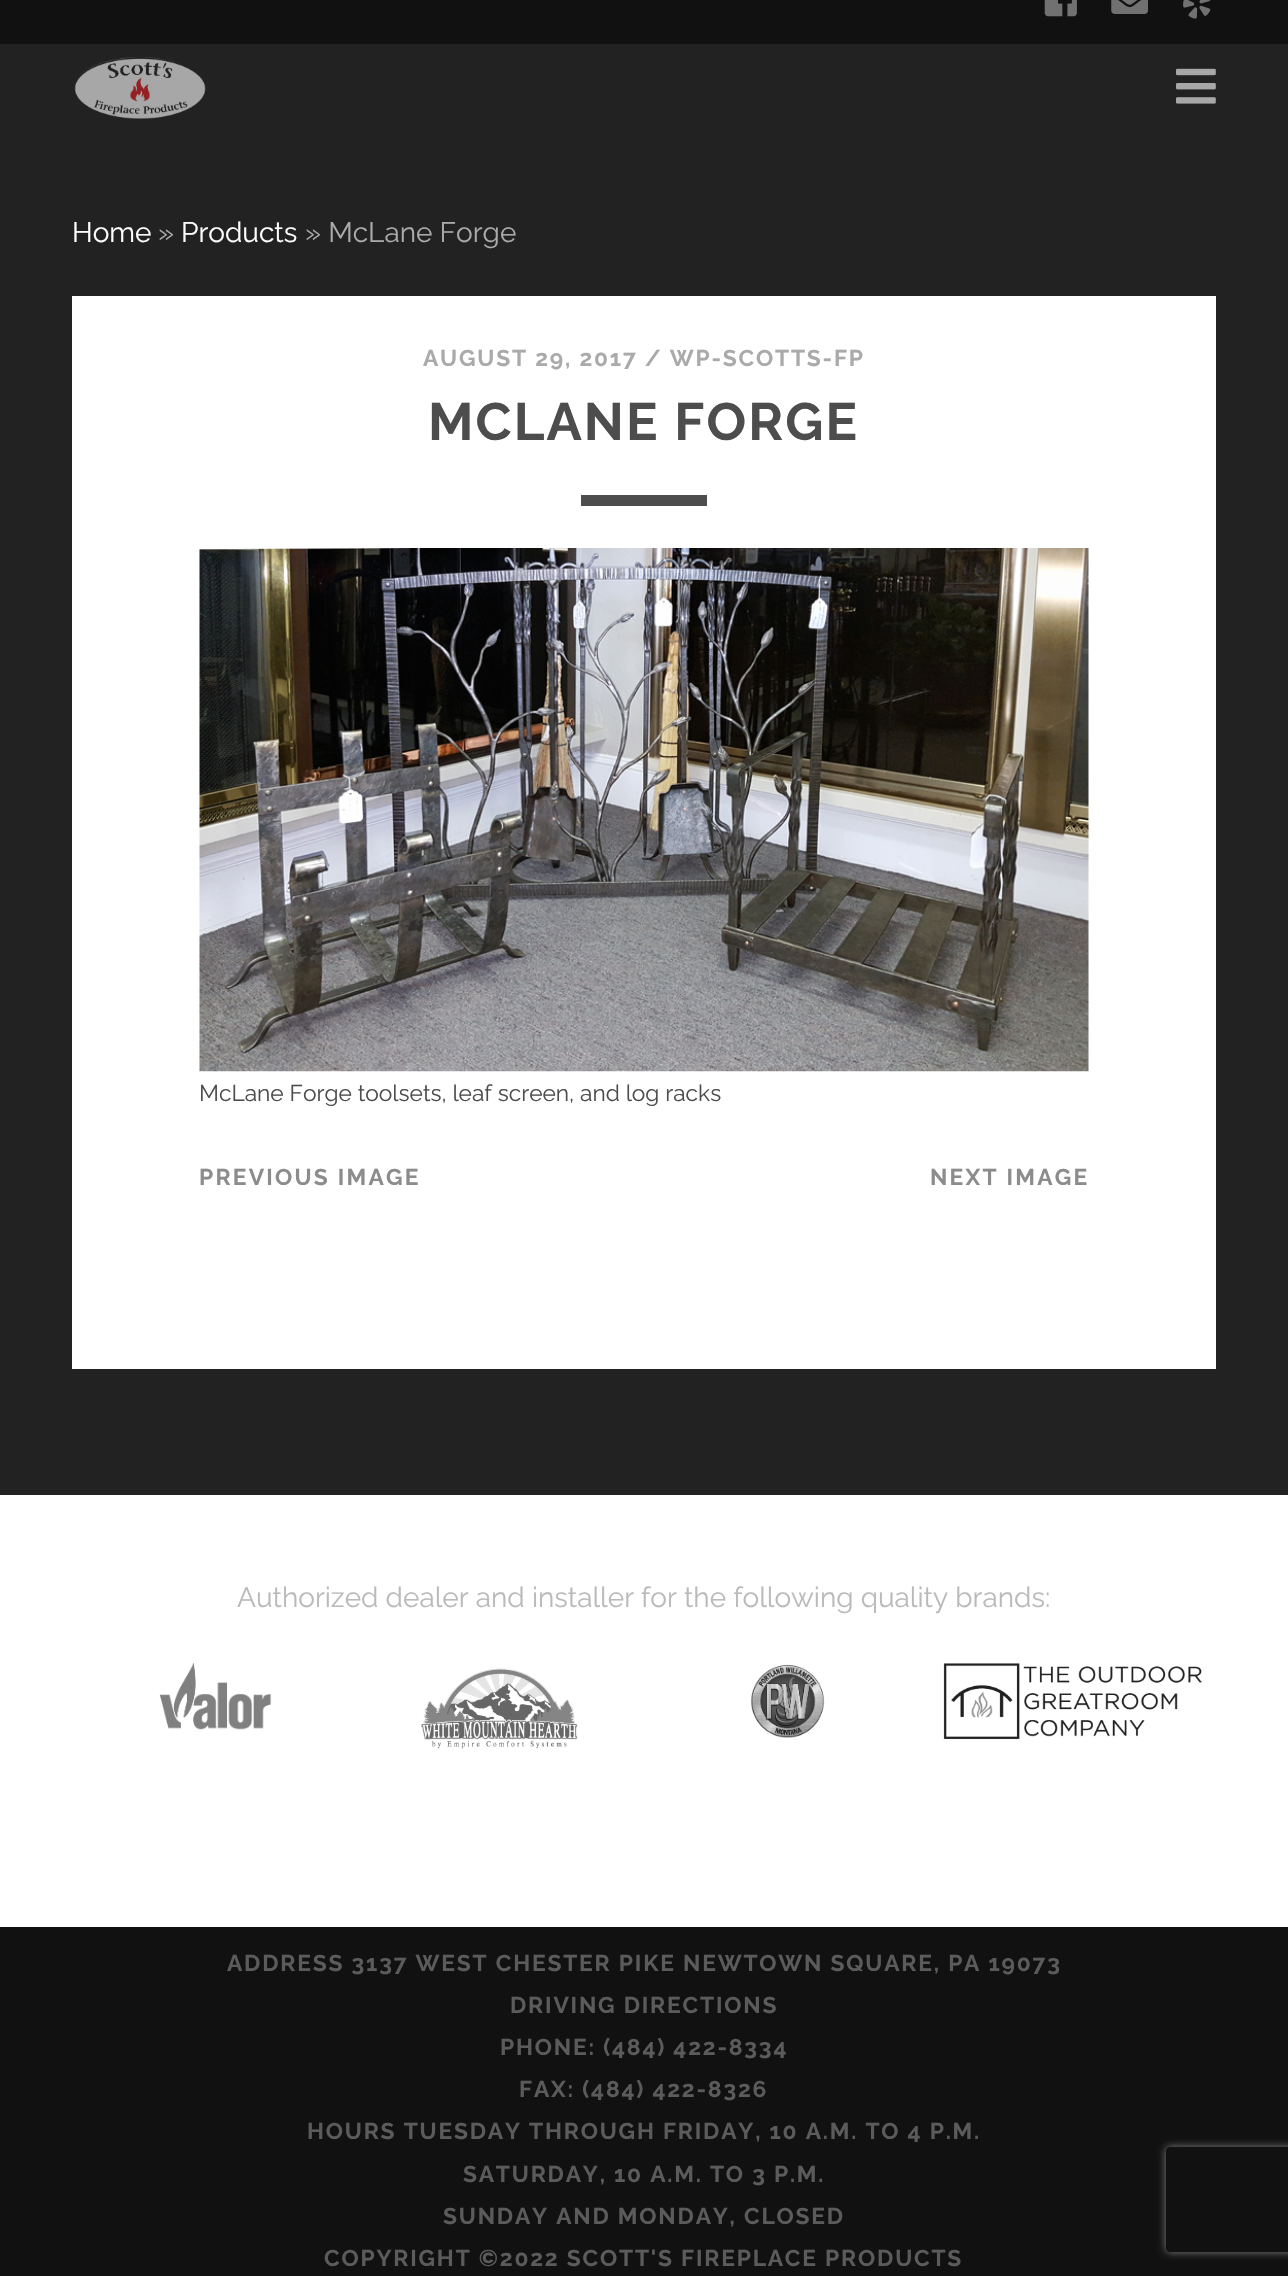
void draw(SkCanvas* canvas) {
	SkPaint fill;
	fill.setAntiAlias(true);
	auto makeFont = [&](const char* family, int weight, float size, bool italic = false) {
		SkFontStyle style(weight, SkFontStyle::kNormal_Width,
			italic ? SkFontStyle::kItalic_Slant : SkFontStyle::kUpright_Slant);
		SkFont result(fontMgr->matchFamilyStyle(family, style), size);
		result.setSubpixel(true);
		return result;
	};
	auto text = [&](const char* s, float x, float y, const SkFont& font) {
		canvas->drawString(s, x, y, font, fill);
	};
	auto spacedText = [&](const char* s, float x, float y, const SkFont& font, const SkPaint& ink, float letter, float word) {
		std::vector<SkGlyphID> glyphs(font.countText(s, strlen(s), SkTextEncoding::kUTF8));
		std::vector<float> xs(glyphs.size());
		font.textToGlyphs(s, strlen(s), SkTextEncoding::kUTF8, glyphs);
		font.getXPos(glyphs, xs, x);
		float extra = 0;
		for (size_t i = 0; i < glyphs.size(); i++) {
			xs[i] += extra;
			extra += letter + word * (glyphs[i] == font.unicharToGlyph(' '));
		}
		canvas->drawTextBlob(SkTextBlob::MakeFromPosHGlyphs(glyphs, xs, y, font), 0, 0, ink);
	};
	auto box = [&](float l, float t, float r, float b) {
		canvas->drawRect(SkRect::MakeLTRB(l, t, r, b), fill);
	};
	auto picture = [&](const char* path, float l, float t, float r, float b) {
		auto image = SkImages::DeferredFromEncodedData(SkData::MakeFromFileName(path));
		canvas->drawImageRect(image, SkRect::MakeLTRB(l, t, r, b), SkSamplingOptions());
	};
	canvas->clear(0xFF222222);
	fill.setColor(0xFF111111);
	box(0, 0, 1288, 44);
	picture("image0.png", 1044, 0, 1077, 17);
	picture("image1.png", 1111, 0, 1148, 14);
	picture("image2.png", 1183, 0, 1211, 19);
	picture("image3.png", 74, 57, 206, 119);
	picture("image4.png", 1176, 68, 1216, 104);
	fill.setColor(0xFFFFFFFF);
	box(72, 296, 1216, 1369);
	fill.setColor(0xFF4D4D4D);
	box(581, 495, 707, 506);
	picture("image5.png", 199, 548, 1089, 1072);
	fill.setColor(0xFFFFFFFF);
	box(0, 1495, 1288, 1927);
	picture("image6.png", 159, 1663, 272, 1730);
	picture("image7.png", 421, 1668, 578, 1749);
	picture("image8.png", 750, 1664, 825, 1738);
	picture("image9.png", 943, 1663, 1203, 1740);
	fill.setColor(0xFF111111);
	box(0, 1927, 1288, 2276);
	canvas->save();
	canvas->clipPath(SkPathBuilder(SkPathFillType::kEvenOdd).moveTo(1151, 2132).lineTo(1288, 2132).lineTo(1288, 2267).lineTo(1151, 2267).close().moveTo(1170, 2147).lineTo(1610, 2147).cubicTo(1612, 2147, 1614, 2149, 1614, 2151).lineTo(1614, 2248).cubicTo(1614, 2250, 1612, 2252, 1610, 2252).lineTo(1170, 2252).cubicTo(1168, 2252, 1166, 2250, 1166, 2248).lineTo(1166, 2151).cubicTo(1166, 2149, 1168, 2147, 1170, 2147).close().detach(), true);
	fill.setColor(0xFF808080);
	fill.setMaskFilter(SkMaskFilter::MakeBlur(kNormal_SkBlurStyle, 4.5f));
	canvas->drawRoundRect(SkRect::MakeLTRB(1166, 2147, 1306, 2252), 4, 4, fill);
	fill.setMaskFilter(nullptr);
	canvas->restore();
	auto font1 = makeFont("Raleway", 400, 28);
	fill.setColor(0xFFFFFFFF);
	text("Home", 72, 242, font1);
	fill.setColor(0xFFAAAAAA);
	text("»", 158, 242, font1);
	fill.setColor(0xFFFFFFFF);
	text("Products", 181, 242, font1);
	fill.setColor(0xFFAAAAAA);
	text("» McLane Forge", 305, 242, font1);
	auto font2 = makeFont("Raleway", 700, 22.75f);
	spacedText("AUGUST 29, 2017 / WP-SCOTTS-FP", 423, 366, font2, fill, 1.82f, 0);
	auto font3 = makeFont("Raleway", 700, 52.5f);
	fill.setColor(0xFF4D4D4D);
	spacedText("MCLANE FORGE", 428, 440, font3, fill, 2.1f, 0);
	auto font4 = makeFont("Raleway", 400, 22.75f);
	text("McLane Forge toolsets, leaf screen, and log racks", 199, 1101, font4);
	fill.setColor(0xFF8C8C8C);
	spacedText("PREVIOUS IMAGE", 199, 1185, font2, fill, 2.25f, 0);
	spacedText("NEXT IMAGE", 930, 1185, font2, fill, 2.25f, 0);
	fill.setColor(0xFFBABABA);
	text("Authorized dealer and installer for the following quality brands:", 237, 1607, font1);
	fill.setColor(0xFF5B5B5B);
	spacedText("ADDRESS 3137 WEST CHESTER PIKE NEWTOWN SQUARE, PA 19073", 227, 1971, font2, fill, 1.82f, 0);
	spacedText("DRIVING DIRECTIONS", 510, 2013, font2, fill, 1.82f, 0);
	spacedText("PHONE: (484) 422-8334", 500, 2055, font2, fill, 1.82f, 0);
	spacedText("FAX: (484) 422-8326", 519, 2097, font2, fill, 1.82f, 0);
	spacedText("HOURS TUESDAY THROUGH FRIDAY, 10 A.M. TO 4 P.M.", 307, 2139, font2, fill, 1.82f, 0);
	spacedText("SATURDAY, 10 A.M. TO 3 P.M.", 463, 2182, font2, fill, 1.82f, 0);
	spacedText("SUNDAY AND MONDAY, CLOSED", 443, 2224, font2, fill, 1.82f, 0);
	spacedText("COPYRIGHT ©2022 SCOTT'S FIREPLACE PRODUCTS", 324, 2266, font2, fill, 1.82f, 0);
}
